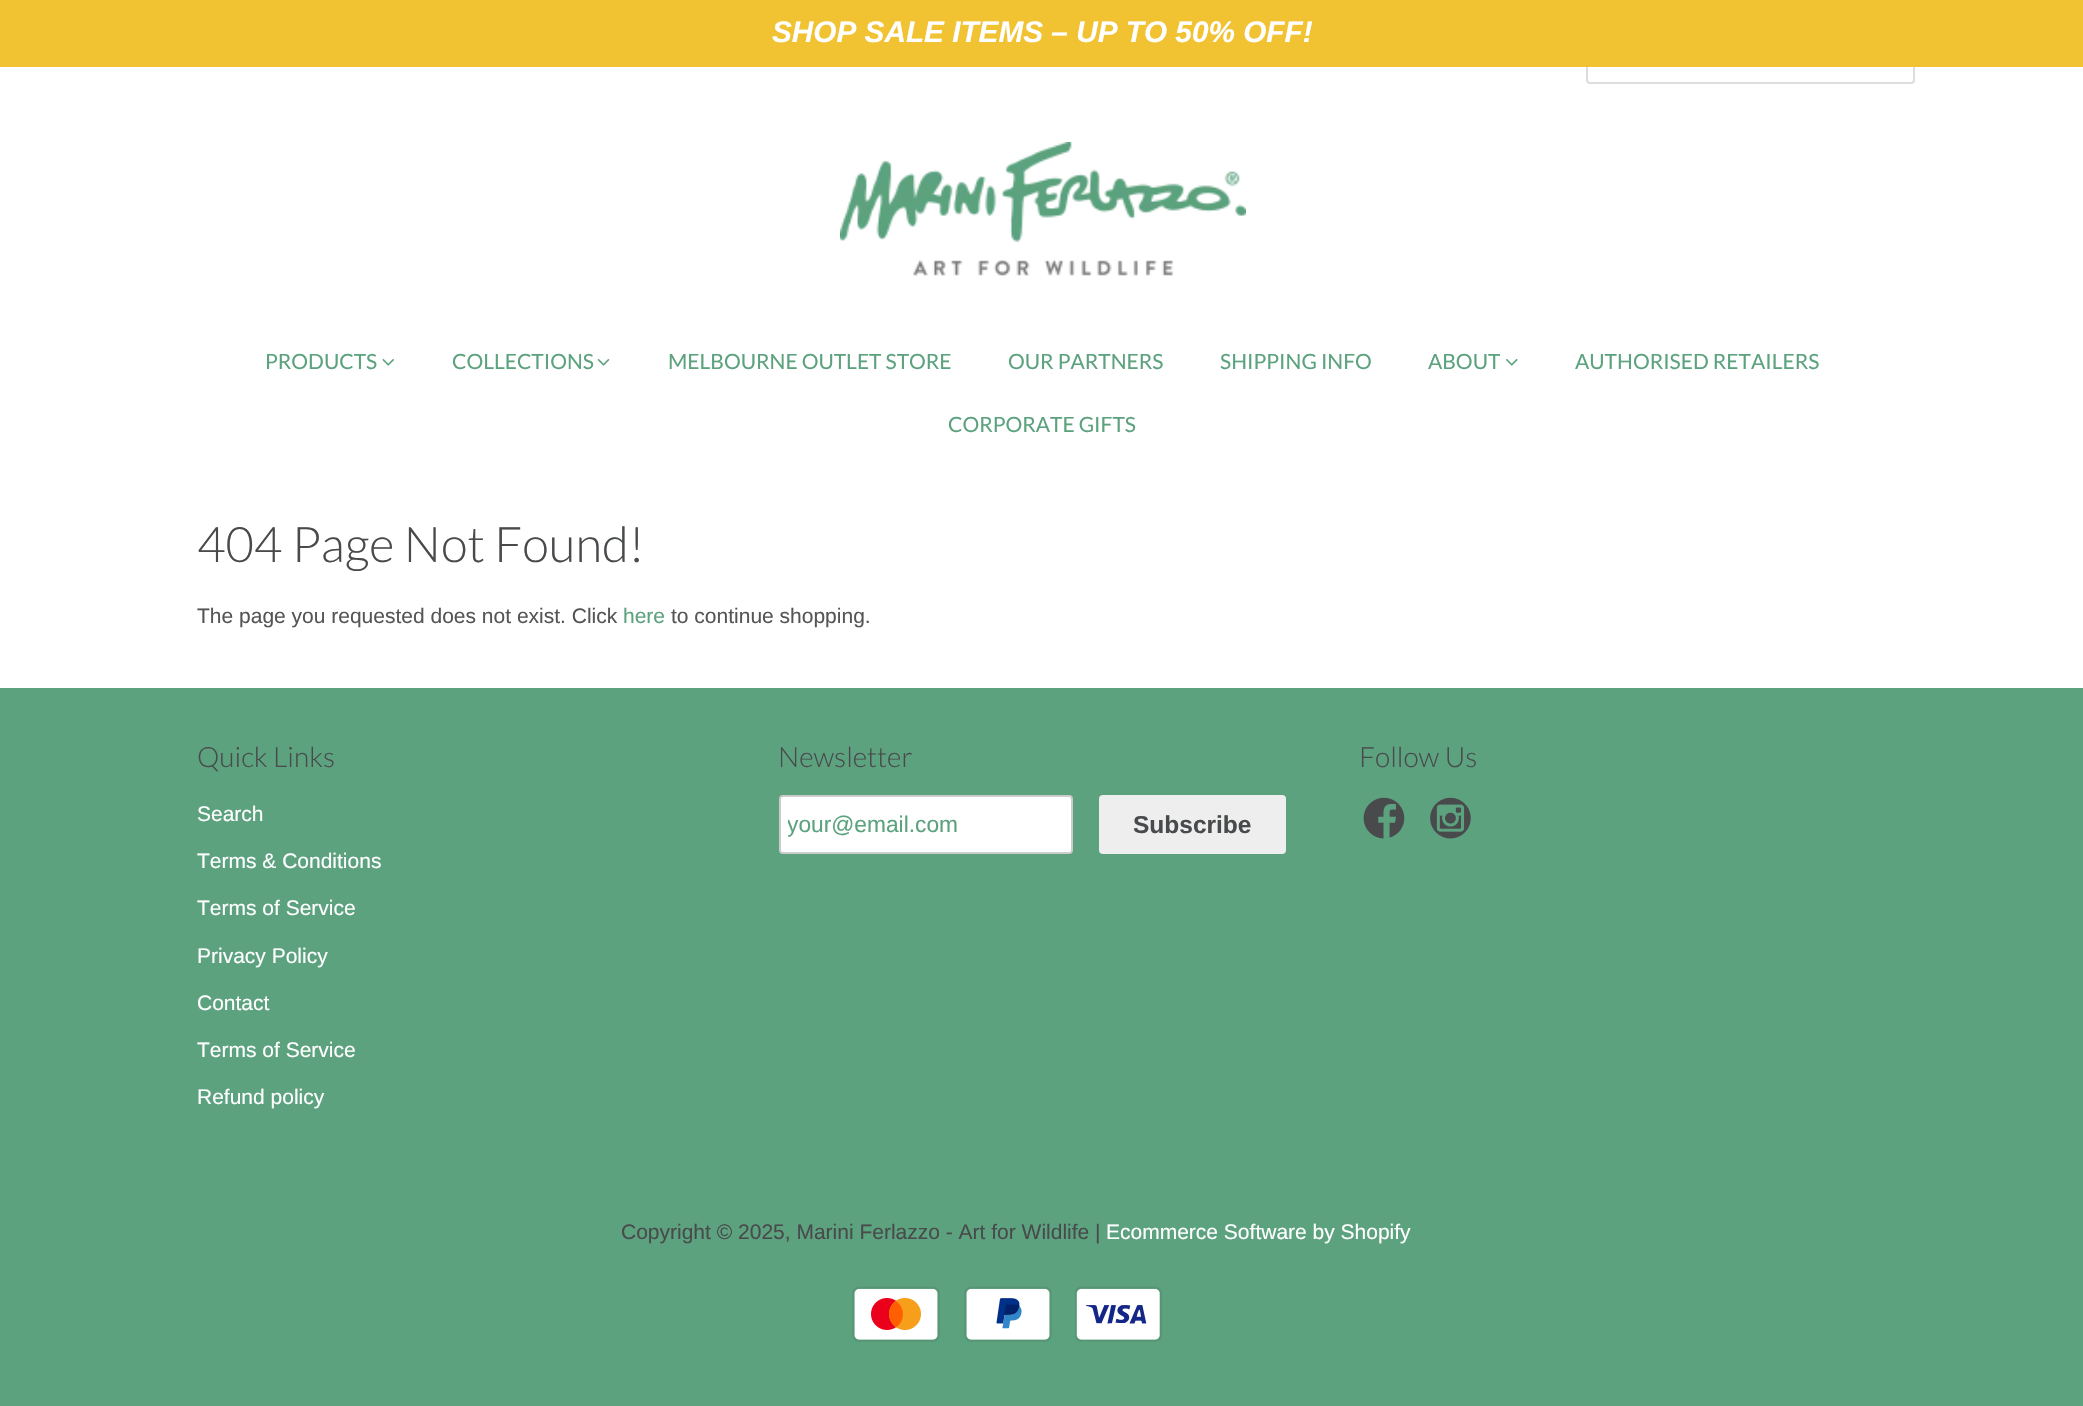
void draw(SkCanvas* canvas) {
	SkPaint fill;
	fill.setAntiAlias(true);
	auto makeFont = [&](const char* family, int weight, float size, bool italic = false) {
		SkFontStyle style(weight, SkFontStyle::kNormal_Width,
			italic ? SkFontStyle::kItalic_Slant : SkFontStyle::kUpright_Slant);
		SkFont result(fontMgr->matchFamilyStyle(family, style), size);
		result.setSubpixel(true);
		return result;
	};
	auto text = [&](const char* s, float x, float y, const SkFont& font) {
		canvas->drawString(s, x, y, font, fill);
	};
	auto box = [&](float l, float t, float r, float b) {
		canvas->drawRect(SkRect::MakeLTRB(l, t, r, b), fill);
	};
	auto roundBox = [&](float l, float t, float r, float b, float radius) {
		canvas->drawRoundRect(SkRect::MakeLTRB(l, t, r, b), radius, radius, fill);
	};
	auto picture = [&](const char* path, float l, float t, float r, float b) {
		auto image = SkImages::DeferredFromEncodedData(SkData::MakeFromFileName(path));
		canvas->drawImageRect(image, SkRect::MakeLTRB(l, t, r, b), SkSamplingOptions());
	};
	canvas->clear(0xFFFFFFFF);
	fill.setStyle(SkPaint::kStroke_Style);
	fill.setStrokeWidth(2);
	fill.setColor(0xFFDDDDDD);
	canvas->drawRoundRect(SkRect::MakeLTRB(1587, 26, 1914, 83), 3, 3, fill);
	fill.setStyle(SkPaint::kFill_Style);
	fill.setColor(0xFFF1C232);
	box(0, 0, 2083, 67);
	picture("image0.png", 840, 142, 1246, 276);
	picture("image1.png", 382, 359, 394, 366);
	picture("image2.png", 597, 359, 610, 366);
	picture("image3.png", 1506, 359, 1518, 366);
	fill.setColor(0xFF5CA27E);
	box(0, 688, 2083, 1406);
	fill.setColor(0xFFFFFFFF);
	canvas->drawRoundRect(SkRect::MakeLTRB(780, 796, 1072, 853), 3, 3, fill);
	fill.setStyle(SkPaint::kStroke_Style);
	fill.setColor(0xFFCCCCCC);
	canvas->drawRoundRect(SkRect::MakeLTRB(780, 796, 1072, 853), 3, 3, fill);
	fill.setStyle(SkPaint::kFill_Style);
	fill.setColor(0xFFEEEEEE);
	roundBox(1099, 795, 1286, 854, 4);
	picture("image4.png", 1363, 797, 1405, 839);
	picture("image5.png", 1430, 797, 1471, 839);
	picture("image6.png", 852, 1286, 940, 1342);
	picture("image7.png", 964, 1286, 1052, 1342);
	picture("image8.png", 1075, 1286, 1162, 1342);
	auto font1 = makeFont("Liberation Sans", 700, 29.75f, true);
	fill.setColor(0xFFFFFFFF);
	text("SHOP SALE ITEMS – UP TO 50% OFF!", 772, 42, font1);
	auto font2 = makeFont("Lato", 400, 21);
	fill.setColor(0xFF5CA27E);
	text("PRODUCTS", 265, 369, font2);
	text("COLLECTIONS", 452, 369, font2);
	text("MELBOURNE OUTLET STORE", 668, 369, font2);
	text("OUR PARTNERS", 1008, 369, font2);
	text("SHIPPING INFO", 1220, 369, font2);
	text("ABOUT", 1428, 369, font2);
	text("AUTHORISED RETAILERS", 1575, 369, font2);
	text("CORPORATE GIFTS", 948, 432, font2);
	auto font3 = makeFont("Lato", 300, 49);
	fill.setColor(0xFF484A4C);
	text("404 Page Not Found!", 197, 562, font3);
	auto font4 = makeFont("Liberation Sans", 400, 21);
	fill.setColor(0xFF555555);
	text("The page you requested does not exist. Click", 197, 623, font4);
	fill.setColor(0xFF5CA27E);
	text("here", 623, 623, font4);
	fill.setColor(0xFF555555);
	text("to continue shopping.", 671, 623, font4);
	auto font5 = makeFont("Lato", 300, 28);
	fill.setColor(0xFF484A4C);
	text("Quick Links", 197, 767, font5);
	fill.setColor(0xFFFFFFFF);
	text("Search", 197, 821, font4);
	text("Terms & Conditions", 197, 868, font4);
	text("Terms of Service", 197, 915, font4);
	text("Privacy Policy", 197, 963, font4);
	text("Contact", 197, 1010, font4);
	text("Terms of Service", 197, 1057, font4);
	text("Refund policy", 197, 1104, font4);
	fill.setColor(0xFF484A4C);
	text("Newsletter", 778, 767, font5);
	canvas->save();
	canvas->clipRect(SkRect::MakeLTRB(788, 812, 1064, 838));
	auto font6 = makeFont("Liberation Sans", 400, 22.75f);
	fill.setColor(0xFF5CA27E);
	text("your@email.com", 787, 832, font6);
	canvas->restore();
	auto font7 = makeFont("Liberation Sans", 700, 24.5f);
	fill.setColor(0xFF484A4C);
	text("Subscribe", 1133, 833, font7);
	text("Follow Us", 1359, 767, font5);
	text("Copyright © 2025, Marini Ferlazzo - Art for Wildlife |", 621, 1239, font4);
	fill.setColor(0xFFFFFFFF);
	text("Ecommerce Software by Shopify", 1106, 1239, font4);
}
